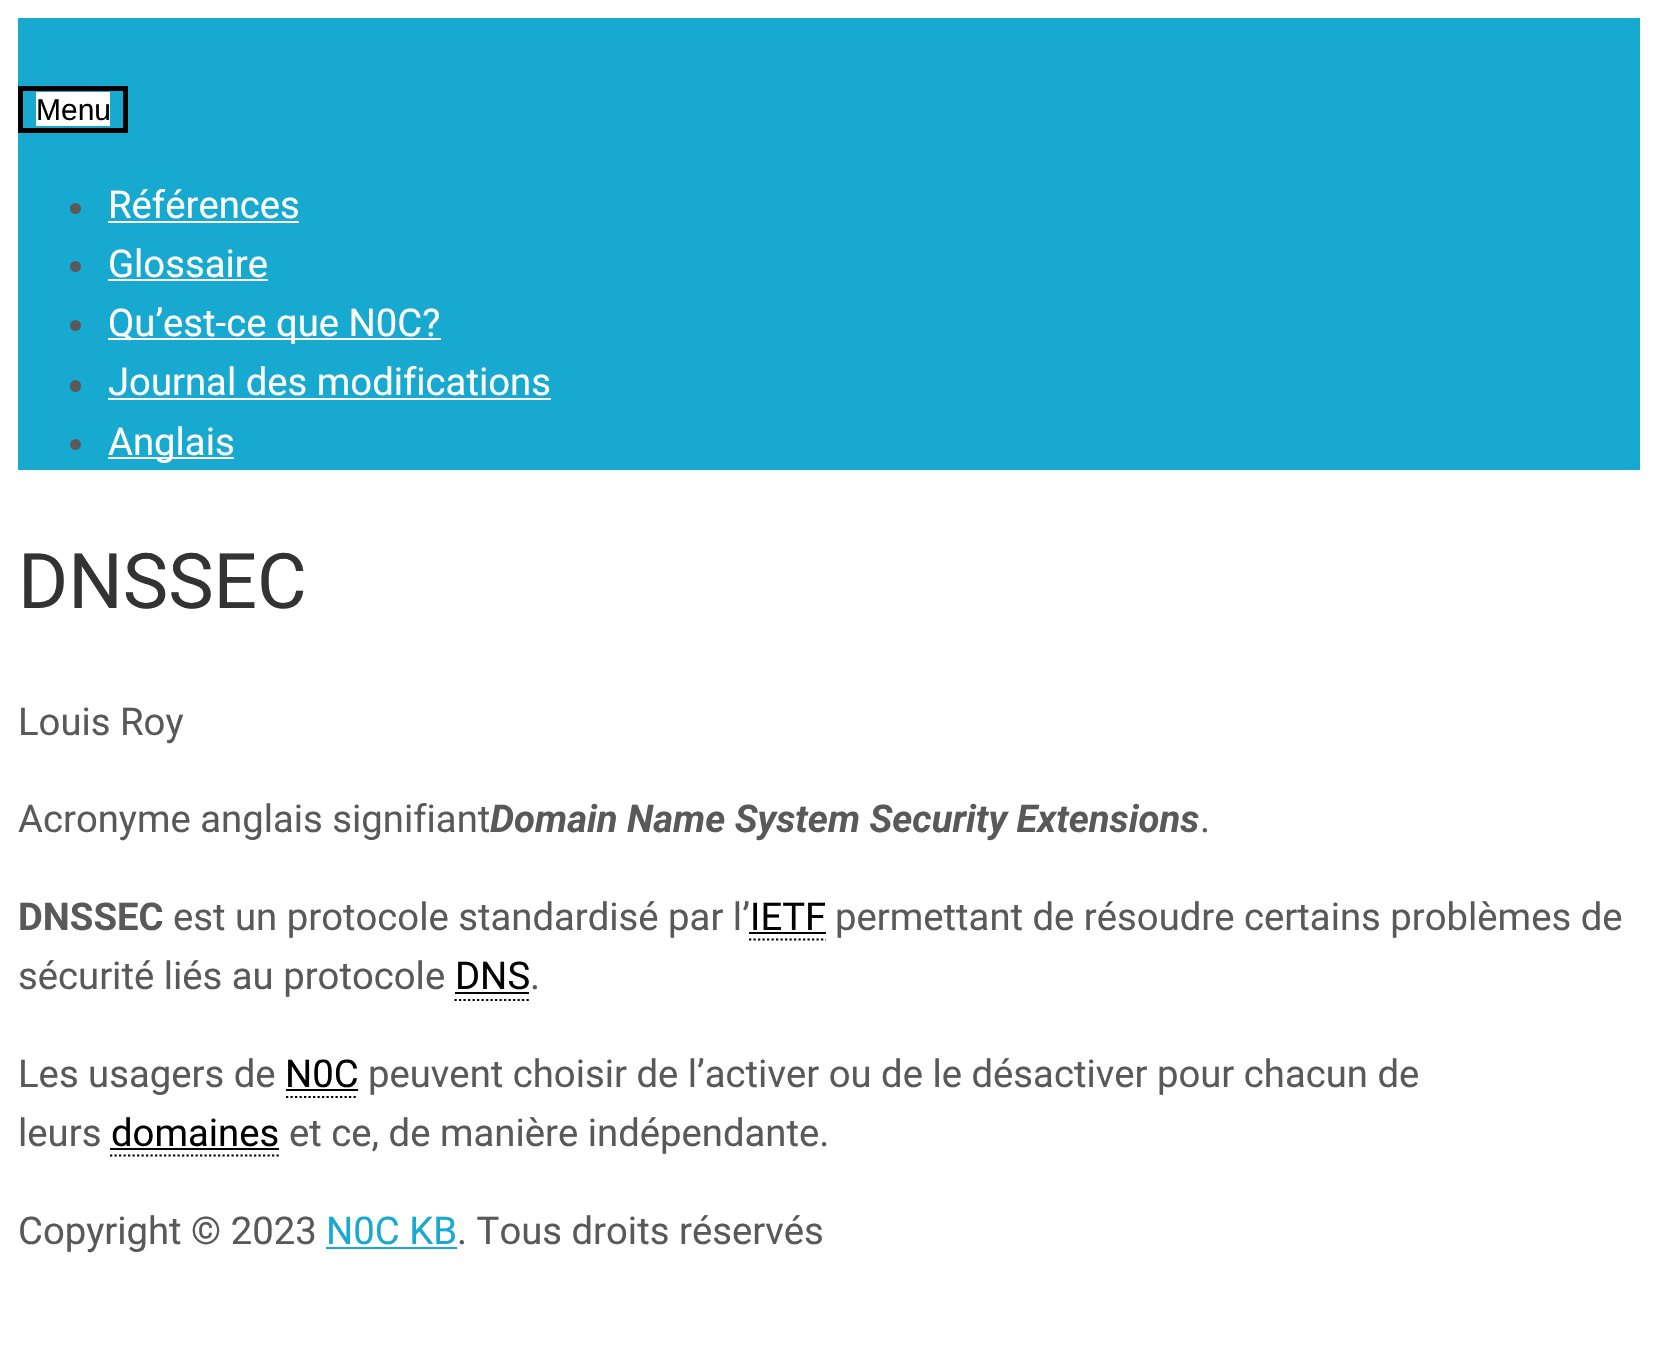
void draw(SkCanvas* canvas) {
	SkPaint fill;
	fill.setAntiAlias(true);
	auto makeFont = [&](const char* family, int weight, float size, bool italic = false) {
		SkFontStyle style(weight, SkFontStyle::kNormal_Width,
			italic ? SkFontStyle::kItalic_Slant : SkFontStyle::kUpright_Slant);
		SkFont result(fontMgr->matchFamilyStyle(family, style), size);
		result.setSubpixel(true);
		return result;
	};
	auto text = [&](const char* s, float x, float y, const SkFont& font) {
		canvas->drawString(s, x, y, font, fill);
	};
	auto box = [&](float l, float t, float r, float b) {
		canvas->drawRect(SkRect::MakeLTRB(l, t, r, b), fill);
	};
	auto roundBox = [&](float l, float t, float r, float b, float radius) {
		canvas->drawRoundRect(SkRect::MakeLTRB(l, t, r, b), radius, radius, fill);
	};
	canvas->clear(0xFFFFFFFF);
	fill.setColor(0xFF18A9D1);
	box(18, 18, 1640, 470);
	fill.setStyle(SkPaint::kStroke_Style);
	fill.setStrokeWidth(5);
	fill.setColor(0xFF000000);
	canvas->drawRect(SkRect::MakeLTRB(20.5f, 88.5f, 125.5f, 130.5f), fill);
	fill.setStyle(SkPaint::kFill_Style);
	fill.setColor(0xFFFFFFFF);
	box(36, 92, 110, 126);
	fill.setColor(0xFF595959);
	canvas->drawCircle(75.5f, 208.5f, 5.5f, fill);
	fill.setColor(0xFFFFFFFF);
	box(108, 221, 299, 223);
	fill.setColor(0xFF595959);
	canvas->drawCircle(75.5f, 266.5f, 5.5f, fill);
	fill.setColor(0xFFFFFFFF);
	box(108, 279, 268, 281);
	fill.setColor(0xFF595959);
	canvas->drawCircle(75.5f, 325.5f, 5.5f, fill);
	fill.setColor(0xFFFFFFFF);
	box(108, 338, 441, 340);
	fill.setColor(0xFF595959);
	roundBox(70, 380, 81, 392, 5.5f);
	fill.setColor(0xFFFFFFFF);
	box(108, 398, 551, 400);
	fill.setColor(0xFF595959);
	canvas->drawCircle(75.5f, 444.5f, 5.5f, fill);
	fill.setColor(0xFFFFFFFF);
	box(108, 457, 234, 459);
	fill.setStyle(SkPaint::kStroke_Style);
	fill.setStrokeWidth(2.2f);
	fill.setColor(0xFF000000);
	fill.setPathEffect(SkDashPathEffect::Make({{2.25f, 2.25f}}, 0));
	canvas->drawPath(SkPathBuilder().moveTo(749, 939.5f).lineTo(826, 939.5f).detach(), fill);
	fill.setPathEffect(nullptr);
	fill.setStyle(SkPaint::kFill_Style);
	box(749, 932, 826, 934);
	fill.setStyle(SkPaint::kStroke_Style);
	fill.setPathEffect(SkDashPathEffect::Make({{2.25f, 2.25f}}, 0));
	canvas->drawPath(SkPathBuilder().moveTo(454.5f, 1000).lineTo(529, 1000).detach(), fill);
	fill.setPathEffect(nullptr);
	fill.setStyle(SkPaint::kFill_Style);
	box(455, 992, 529, 994);
	fill.setStyle(SkPaint::kStroke_Style);
	fill.setPathEffect(SkDashPathEffect::Make({{2.25f, 2.25f}}, 0));
	canvas->drawPath(SkPathBuilder().moveTo(286, 1097).lineTo(358, 1097).detach(), fill);
	fill.setPathEffect(nullptr);
	fill.setStyle(SkPaint::kFill_Style);
	box(286, 1089, 358, 1091);
	fill.setStyle(SkPaint::kStroke_Style);
	fill.setPathEffect(SkDashPathEffect::Make({{2.25f, 2.25f}}, 0));
	canvas->drawPath(SkPathBuilder().moveTo(110, 1155.5f).lineTo(279, 1155.5f).detach(), fill);
	fill.setPathEffect(nullptr);
	fill.setStyle(SkPaint::kFill_Style);
	box(110, 1148, 279, 1150);
	fill.setColor(0xFF18A9D1);
	box(326, 1247, 457, 1249);
	auto font1 = makeFont("Liberation Sans", 400, 30);
	fill.setColor(0xFF000000);
	text("Menu", 36, 120, font1);
	auto font2 = makeFont("Roboto", 400, 38.25f);
	fill.setColor(0xFFFFFFFF);
	text("Références", 108, 218, font2);
	text("Glossaire", 108, 277, font2);
	text("Qu’est-ce que N0C?", 108, 336, font2);
	text("Journal des modifications", 108, 395, font2);
	text("Anglais", 108, 455, font2);
	auto font3 = makeFont("Roboto", 400, 76.5f);
	fill.setColor(0xFF333333);
	text("DNSSEC", 18, 608, font3);
	fill.setColor(0xFF595959);
	text("Louis Roy", 18, 735, font2);
	text("Acronyme anglais signifiant", 18, 832, font2);
	auto font4 = makeFont("Roboto", 700, 38.25f, true);
	text("Domain Name System Security Extensions", 490, 832, font4);
	text(".", 1200, 832, font2);
	auto font5 = makeFont("Roboto", 700, 38.25f);
	text("DNSSEC", 18, 930, font5);
	text("est un protocole standardisé par l’", 173, 930, font2);
	fill.setColor(0xFF000000);
	text("IETF", 750, 930, font2);
	fill.setColor(0xFF595959);
	text("permettant de résoudre certains problèmes de", 835, 930, font2);
	text("sécurité liés au protocole", 18, 989, font2);
	fill.setColor(0xFF000000);
	text("DNS", 455, 989, font2);
	fill.setColor(0xFF595959);
	text(".", 530, 989, font2);
	text("Les usagers de", 18, 1087, font2);
	fill.setColor(0xFF000000);
	text("N0C", 285, 1087, font2);
	fill.setColor(0xFF595959);
	text("peuvent choisir de l’activer ou de le désactiver pour chacun de", 368, 1087, font2);
	text("leurs", 18, 1146, font2);
	fill.setColor(0xFF000000);
	text("domaines", 111, 1146, font2);
	fill.setColor(0xFF595959);
	text("et ce, de manière indépendante.", 289, 1146, font2);
	text("Copyright © 2023", 18, 1244, font2);
	fill.setColor(0xFF18A9D1);
	text("N0C KB", 326, 1244, font2);
	fill.setColor(0xFF595959);
	text(". Tous droits réservés", 457, 1244, font2);
}
